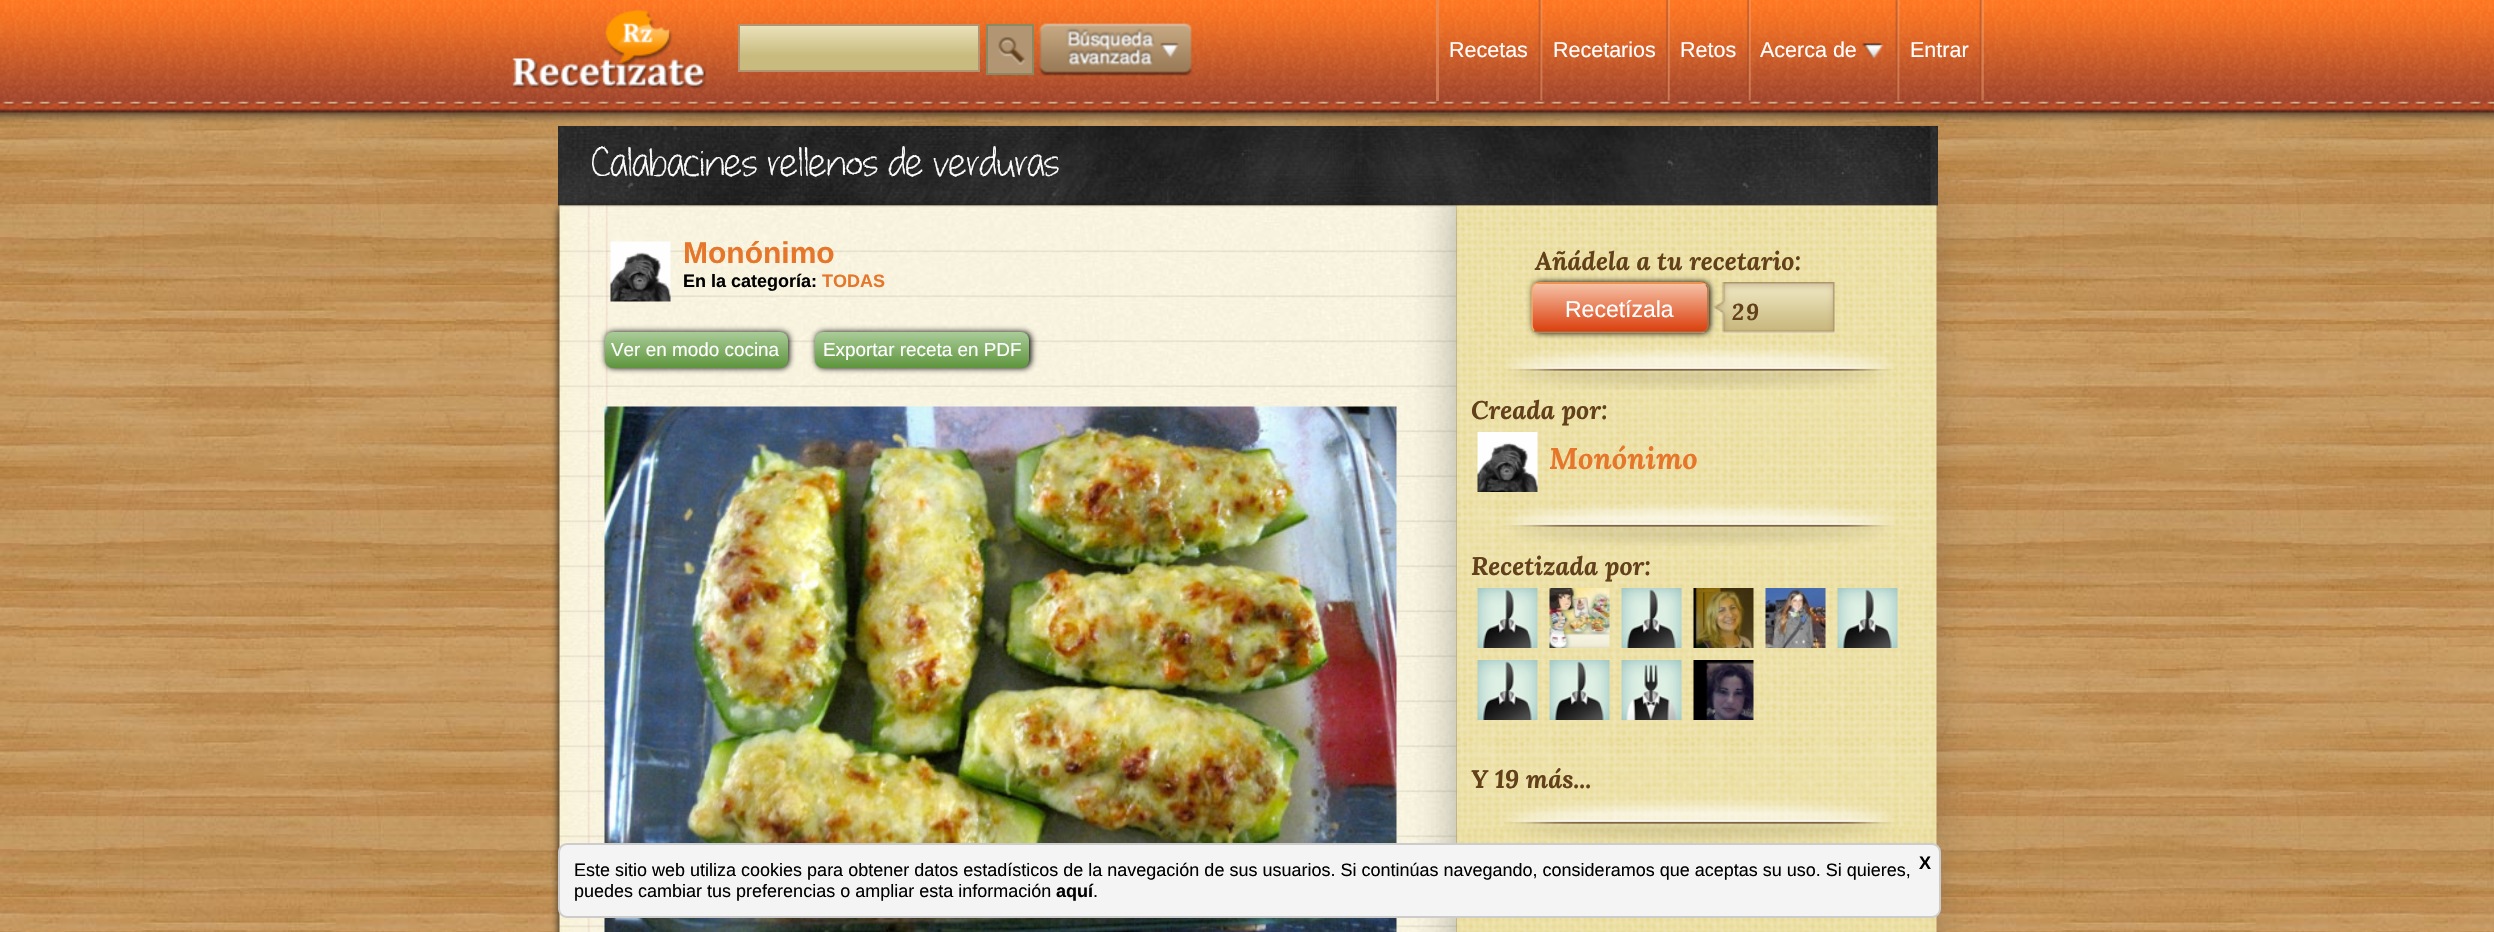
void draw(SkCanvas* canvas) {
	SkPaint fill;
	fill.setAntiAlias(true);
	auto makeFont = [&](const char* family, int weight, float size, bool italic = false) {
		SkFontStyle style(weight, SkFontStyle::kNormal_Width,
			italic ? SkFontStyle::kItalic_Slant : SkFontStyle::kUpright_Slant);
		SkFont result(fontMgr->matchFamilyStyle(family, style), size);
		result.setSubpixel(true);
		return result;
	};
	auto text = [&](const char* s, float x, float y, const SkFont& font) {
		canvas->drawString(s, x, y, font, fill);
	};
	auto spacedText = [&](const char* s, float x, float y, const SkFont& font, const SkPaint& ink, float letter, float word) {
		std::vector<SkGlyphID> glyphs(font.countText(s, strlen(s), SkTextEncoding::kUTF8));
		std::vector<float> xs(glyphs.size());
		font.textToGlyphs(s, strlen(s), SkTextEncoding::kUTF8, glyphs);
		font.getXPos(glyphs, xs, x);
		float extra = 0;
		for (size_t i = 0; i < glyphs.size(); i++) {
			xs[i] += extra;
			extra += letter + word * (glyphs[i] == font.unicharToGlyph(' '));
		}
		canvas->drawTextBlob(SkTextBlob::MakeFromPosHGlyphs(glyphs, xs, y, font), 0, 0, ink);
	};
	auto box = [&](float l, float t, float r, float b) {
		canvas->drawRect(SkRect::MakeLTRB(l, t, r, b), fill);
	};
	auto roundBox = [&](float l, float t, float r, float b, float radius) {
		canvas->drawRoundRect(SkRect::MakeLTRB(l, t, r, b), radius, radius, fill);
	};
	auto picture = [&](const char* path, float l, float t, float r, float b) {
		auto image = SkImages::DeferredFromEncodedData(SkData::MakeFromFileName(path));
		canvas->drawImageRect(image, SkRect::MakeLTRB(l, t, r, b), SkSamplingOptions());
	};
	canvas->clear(0xFFFFFFFF);
	picture("image0.png", 0, 112, 2494, 932);
	picture("image1.png", 0, 0, 2494, 123);
	picture("image2.png", 512, 10, 707, 89);
	{
		const SkColor colors[] = {0xFFC9BB7E, 0xFFEAE1BA};
		const float stops[] = {0.34f, 1};
		const SkPoint ends[] = {{740, 71}, {740, 26}};
		fill.setShader(SkGradientShader::MakeLinear(ends, colors, stops, 2, SkTileMode::kClamp));
		fill.setAlpha(255);
	}
	box(740, 26, 978, 70);
	fill.setStyle(SkPaint::kStroke_Style);
	fill.setStrokeWidth(2);
	fill.setShader(nullptr);
	fill.setColor(0xFFB29472);
	canvas->drawRect(SkRect::MakeLTRB(739, 25, 979, 71), fill);
	fill.setStyle(SkPaint::kFill_Style);
	fill.setColor(0xFFB29573);
	canvas->drawRect(SkRect::MakeLTRB(987, 25, 1033, 74), fill);
	fill.setStyle(SkPaint::kStroke_Style);
	fill.setColor(0xFF8A8A62);
	canvas->drawRect(SkRect::MakeLTRB(987, 25, 1033, 74), fill);
	picture("image3.png", 998, 37, 1025, 65);
	picture("image4.png", 1039, 23, 1192, 76);
	fill.setStyle(SkPaint::kFill_Style);
	fill.setColor(0x9CE3956A);
	box(1436, 0, 1439, 101);
	picture("image5.png", 1538, 0, 1543, 101);
	picture("image6.png", 1666, 0, 1670, 101);
	picture("image7.png", 1747, 0, 1751, 101);
	picture("image8.png", 1862, 43, 1884, 59);
	picture("image9.png", 1895, 0, 1900, 101);
	picture("image10.png", 1979, 0, 1984, 101);
	picture("image11.png", 558, 126, 1938, 206);
	fill.setColor(0xFF000000);
	fill.setMaskFilter(SkMaskFilter::MakeBlur(kNormal_SkBlurStyle, 4.5f));
	canvas->drawRect(SkRect::MakeLTRB(560, 209, 1457, 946), fill);
	fill.setMaskFilter(nullptr);
	picture("image12.png", 559, 205, 1457, 932);
	picture("image13.png", 610, 241, 671, 302);
	fill.setMaskFilter(SkMaskFilter::MakeBlur(kNormal_SkBlurStyle, 3));
	canvas->drawRoundRect(SkRect::MakeLTRB(606, 332, 789, 368), 8, 8, fill);
	fill.setMaskFilter(nullptr);
	{
		const SkColor colors[] = {0xFFAACC99, 0xFF5E953D};
		const float stops[] = {0, 0.99f};
		const SkPoint ends[] = {{696, 332}, {696, 368}};
		fill.setShader(SkGradientShader::MakeLinear(ends, colors, stops, 2, SkTileMode::kClamp));
		fill.setAlpha(255);
	}
	roundBox(605, 332, 788, 368, 8);
	fill.setShader(nullptr);
	fill.setColor(0xFF000000);
	fill.setMaskFilter(SkMaskFilter::MakeBlur(kNormal_SkBlurStyle, 3));
	canvas->drawRoundRect(SkRect::MakeLTRB(816, 332, 1031, 368), 8, 8, fill);
	fill.setMaskFilter(nullptr);
	{
		const SkColor colors[] = {0xFFAACC99, 0xFF5E953D};
		const float stops[] = {0, 0.99f};
		const SkPoint ends[] = {{922, 332}, {922, 368}};
		fill.setShader(SkGradientShader::MakeLinear(ends, colors, stops, 2, SkTileMode::kClamp));
		fill.setAlpha(255);
	}
	roundBox(815, 332, 1029, 368, 8);
	picture("image14.png", 604, 406, 1397, 932);
	fill.setShader(nullptr);
	fill.setColor(0x52323232);
	fill.setMaskFilter(SkMaskFilter::MakeBlur(kNormal_SkBlurStyle, 19));
	canvas->drawRect(SkRect::MakeLTRB(1451, 192, 1931, 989), fill);
	fill.setMaskFilter(nullptr);
	picture("image15.png", 1456, 205, 1937, 932);
	fill.setColor(0xFF000000);
	fill.setMaskFilter(SkMaskFilter::MakeBlur(kNormal_SkBlurStyle, 3));
	canvas->drawRoundRect(SkRect::MakeLTRB(1533, 282, 1710, 333), 8, 8, fill);
	fill.setMaskFilter(nullptr);
	canvas->save();
	canvas->clipPath(SkPathBuilder().moveTo(1540, 282).lineTo(1701, 282).cubicTo(1705.5f, 282, 1709, 285.5f, 1709, 290).lineTo(1709, 325).cubicTo(1709, 329.5f, 1705.5f, 333, 1701, 333).lineTo(1540, 333).cubicTo(1535.5f, 333, 1532, 329.5f, 1532, 325).lineTo(1532, 290).cubicTo(1532, 285.5f, 1535.5f, 282, 1540, 282).close().detach(), true);
	{
		const SkColor colors[] = {0xFFF6C1A5, 0xFFDA3D0B};
		const float stops[] = {0, 1};
		const SkPoint ends[] = {{1620, 236}, {1620, 284}};
		fill.setShader(SkGradientShader::MakeLinear(ends, colors, stops, 2, SkTileMode::kClamp));
		fill.setAlpha(255);
	}
	box(1532, 282, 1709, 284);
	{
		const SkColor colors[] = {0xFFF6C1A5, 0xFFDA3D0B};
		const float stops[] = {0, 1};
		const SkPoint ends[] = {{1620, 284}, {1620, 332}};
		fill.setShader(SkGradientShader::MakeLinear(ends, colors, stops, 2, SkTileMode::kClamp));
		fill.setAlpha(255);
	}
	box(1532, 284, 1709, 332);
	{
		const SkColor colors[] = {0xFFF6C1A5, 0xFFDA3D0B};
		const float stops[] = {0, 1};
		const SkPoint ends[] = {{1620, 332}, {1620, 380}};
		fill.setShader(SkGradientShader::MakeLinear(ends, colors, stops, 2, SkTileMode::kClamp));
		fill.setAlpha(255);
	}
	box(1532, 332, 1709, 333);
	canvas->restore();
	fill.setStyle(SkPaint::kStroke_Style);
	fill.setStrokeWidth(1.5f);
	fill.setShader(nullptr);
	fill.setColor(0xFFA47243);
	canvas->drawPath(SkPathBuilder().moveTo(1706, 284.5f).cubicTo(1707, 286, 1708, 287.5f, 1708, 289.5f).lineTo(1708, 325.5f).cubicTo(1708, 327.5f, 1707, 329, 1706, 330.5f).cubicTo(1704.5f, 331.5f, 1703, 332, 1701, 332).lineTo(1539, 332).cubicTo(1537, 332, 1535.5f, 331.5f, 1534, 330.5f).detach(), fill);
	fill.setColor(0xFFF6AB64);
	canvas->drawPath(SkPathBuilder().moveTo(1534, 330.5f).cubicTo(1533, 329, 1532, 327.5f, 1532, 325.5f).lineTo(1532, 289.5f).cubicTo(1532, 287.5f, 1533, 286, 1534, 284.5f).cubicTo(1535.5f, 283.5f, 1537, 283, 1539, 283).lineTo(1701, 283).cubicTo(1703, 283, 1704.5f, 283.5f, 1706, 284.5f).detach(), fill);
	picture("image16.png", 1713, 282, 1835, 335);
	picture("image17.png", 1504, 343, 1895, 390);
	picture("image18.png", 1477, 432, 1538, 492);
	picture("image19.png", 1504, 500, 1895, 546);
	picture("image20.png", 1477, 588, 1538, 648);
	picture("image21.png", 1549, 588, 1610, 648);
	picture("image22.png", 1621, 588, 1682, 648);
	picture("image23.png", 1693, 588, 1754, 648);
	picture("image24.png", 1765, 588, 1826, 648);
	picture("image25.png", 1837, 588, 1898, 648);
	picture("image26.png", 1477, 660, 1538, 720);
	picture("image27.png", 1549, 660, 1610, 720);
	picture("image28.png", 1621, 660, 1682, 720);
	picture("image29.png", 1693, 660, 1754, 720);
	picture("image30.png", 1504, 797, 1895, 843);
	fill.setStyle(SkPaint::kFill_Style);
	fill.setColor(0xFFF4F4F4);
	canvas->drawRoundRect(SkRect::MakeLTRB(559, 844, 1940, 917), 8, 8, fill);
	fill.setStyle(SkPaint::kStroke_Style);
	fill.setStrokeWidth(2);
	fill.setColor(0xFFCCCCCC);
	canvas->drawRoundRect(SkRect::MakeLTRB(559, 844, 1940, 917), 8, 8, fill);
	auto font1 = makeFont("Liberation Sans", 400, 21.5f);
	fill.setStyle(SkPaint::kFill_Style);
	fill.setColor(0xFFFFFFFF);
	text("Recetas", 1449, 57, font1);
	text("Recetarios", 1553, 57, font1);
	text("Retos", 1680, 57, font1);
	text("Acerca de", 1760, 57, font1);
	text("Entrar", 1910, 57, font1);
	auto font2 = makeFont("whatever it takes", 400, 51);
	text("Calabacines rellenos de verduras", 592, 176, font2);
	auto font3 = makeFont("Liberation Sans", 700, 30);
	fill.setColor(0xFFE6762A);
	text("Monónimo", 683, 263, font3);
	auto font4 = makeFont("Liberation Sans", 700, 18);
	fill.setColor(0xFF000000);
	text("En la categoría:", 683, 287, font4);
	fill.setColor(0xFFE6762A);
	text("TODAS", 822, 287, font4);
	auto font5 = makeFont("Liberation Sans", 400, 18.9f);
	fill.setColor(0xFFFFFFFF);
	text("Ver en modo cocina", 611, 356, font5);
	text("Exportar receta en PDF", 823, 356, font5);
	auto font6 = makeFont("Lora", 700, 25.5f, true);
	fill.setColor(0xFF61401A);
	text("Añádela a tu recetario:", 1535, 270, font6);
	auto font7 = makeFont("Liberation Sans", 400, 23);
	fill.setColor(0xFFFFFFFF);
	text("Recetízala", 1565, 317, font7);
	auto font8 = makeFont("Lora", 700, 23, true);
	fill.setColor(0xFF61401A);
	spacedText("29", 1732, 320, font8, fill, 2, 0);
	text("Creada por:", 1471, 419, font6);
	auto font9 = makeFont("Lora", 700, 30, true);
	fill.setColor(0xFFE6762A);
	text("Monónimo", 1549, 469, font9);
	fill.setColor(0xFF61401A);
	text("Recetizada por:", 1471, 575, font6);
	text("Y 19 más...", 1471, 788, font6);
	auto font10 = makeFont("Liberation Sans", 400, 18);
	fill.setColor(0xFF000000);
	text("Este sitio web utiliza cookies para obtener datos estadísticos de la navegación de sus usuarios. Si continúas navegando, consideramos que aceptas su uso. Si quieres,", 574, 876, font10);
	text("X", 1919, 869, font4);
	text("puedes cambiar tus preferencias o ampliar esta información", 574, 897, font10);
	text("aquí", 1056, 897, font4);
	text(".", 1093, 897, font10);
}
